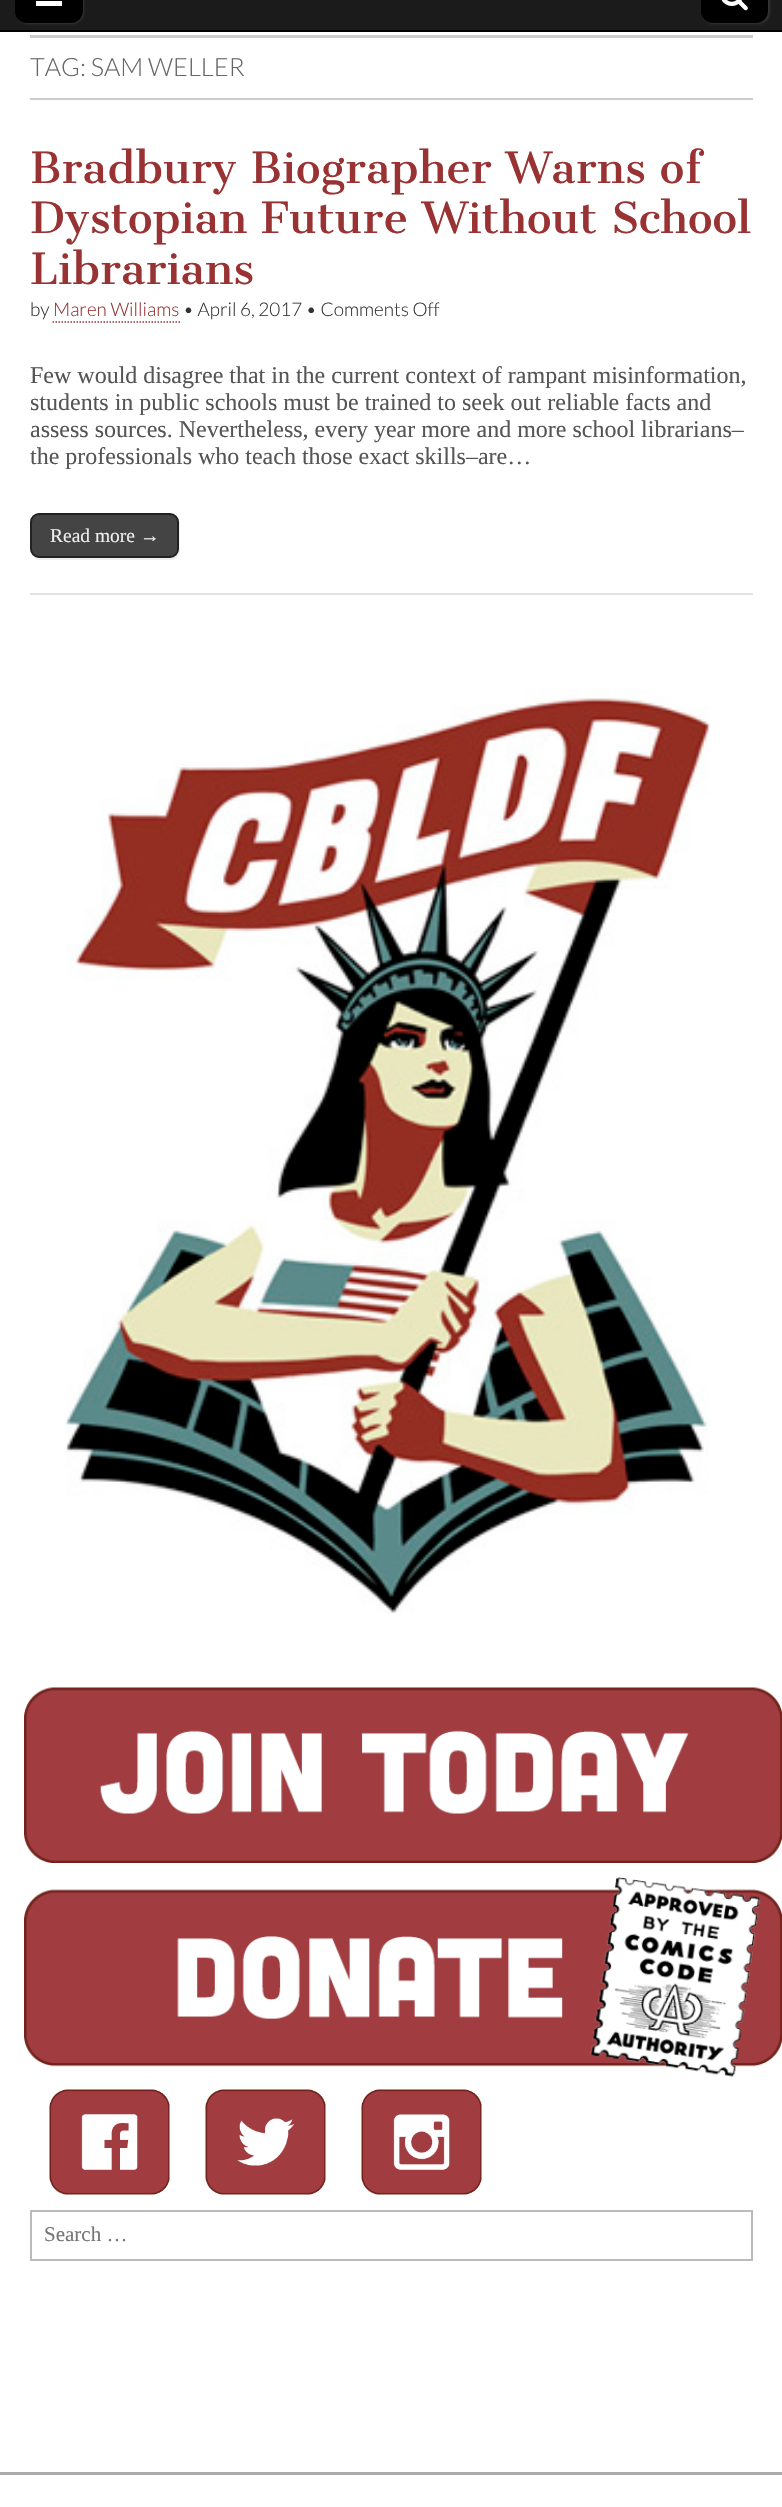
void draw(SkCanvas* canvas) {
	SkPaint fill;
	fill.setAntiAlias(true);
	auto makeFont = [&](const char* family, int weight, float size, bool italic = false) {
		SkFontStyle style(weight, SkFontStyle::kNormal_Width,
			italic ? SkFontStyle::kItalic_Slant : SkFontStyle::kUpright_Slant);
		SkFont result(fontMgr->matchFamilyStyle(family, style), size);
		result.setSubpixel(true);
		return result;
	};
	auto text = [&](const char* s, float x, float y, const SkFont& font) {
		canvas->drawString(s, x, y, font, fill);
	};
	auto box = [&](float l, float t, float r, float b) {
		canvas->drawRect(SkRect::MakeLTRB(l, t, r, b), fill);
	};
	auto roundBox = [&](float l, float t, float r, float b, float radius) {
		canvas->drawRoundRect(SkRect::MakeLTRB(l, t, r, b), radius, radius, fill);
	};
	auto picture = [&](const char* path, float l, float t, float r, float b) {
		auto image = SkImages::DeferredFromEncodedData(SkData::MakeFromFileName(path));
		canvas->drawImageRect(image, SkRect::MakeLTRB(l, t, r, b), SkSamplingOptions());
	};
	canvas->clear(0xFFFFFFFF);
	fill.setColor(0xFF1B1B1B);
	box(0, 0, 782, 30);
	fill.setColor(0xFF000000);
	box(0, 30, 782, 32);
	fill.setColor(0xFF333333);
	fill.setMaskFilter(SkMaskFilter::MakeBlur(kNormal_SkBlurStyle, 1));
	canvas->drawRoundRect(SkRect::MakeLTRB(17, -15, 84, 24), 12, 12, fill);
	fill.setMaskFilter(nullptr);
	fill.setColor(0xFF000000);
	roundBox(15, -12, 83, 23, 12);
	canvas->drawPath(SkPathBuilder().moveTo(28, -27).lineTo(72, -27).cubicTo(75, -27, 77, -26, 79, -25).cubicTo(77, -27, 74, -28, 71, -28).lineTo(27, -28).cubicTo(20, -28, 15, -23, 15, -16).lineTo(15, 11).cubicTo(15, 15, 17, 18, 19, 20).cubicTo(14, 15, 16, 5, 16, -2).cubicTo(16, -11, 14, -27, 28, -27).close().detach(), fill);
	fill.setColor(0xFFFFFFFF);
	box(36, 1, 62, 6);
	fill.setColor(0xFF333333);
	fill.setMaskFilter(SkMaskFilter::MakeBlur(kNormal_SkBlurStyle, 1));
	canvas->drawRoundRect(SkRect::MakeLTRB(702, -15, 770, 24), 12, 12, fill);
	fill.setMaskFilter(nullptr);
	fill.setColor(0xFF000000);
	roundBox(701, -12, 768, 23, 12);
	canvas->drawPath(SkPathBuilder().moveTo(714, -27).lineTo(758, -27).lineTo(763, -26).cubicTo(761, -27, 758, -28, 756, -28).lineTo(713, -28).cubicTo(706, -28, 701, -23, 701, -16).lineTo(701, 11).cubicTo(701, 14, 702, 17, 704, 19).cubicTo(701, 14, 702, 4, 702, -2).cubicTo(702, -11, 699, -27, 714, -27).close().detach(), fill);
	picture("image0.png", 721, 0, 748, 11);
	fill.setColor(0xFFCCCCCC);
	box(30, 35, 753, 38);
	box(30, 98, 753, 100);
	fill.setStyle(SkPaint::kStroke_Style);
	fill.setStrokeWidth(1.5f);
	fill.setColor(0xFF993333);
	fill.setPathEffect(SkDashPathEffect::Make({{1.5f, 1.5f}}, 0));
	canvas->drawPath(SkPathBuilder().moveTo(52.5f, 322).lineTo(180, 322).detach(), fill);
	fill.setPathEffect(nullptr);
	fill.setStyle(SkPaint::kFill_Style);
	fill.setColor(0xFFE2E2E2);
	box(30, 593, 753, 595);
	fill.setColor(0xFFEEEEEE);
	canvas->drawPath(SkPathBuilder().moveTo(34, 556).cubicTo(35, 559, 38, 560, 41, 560).lineTo(171, 560).cubicTo(176, 560, 180, 556, 180, 551).lineTo(180, 524).cubicTo(180, 522, 179, 519, 177, 518).cubicTo(178, 519, 178, 520, 178, 522).lineTo(178, 549).cubicTo(178, 554, 174, 558, 170, 558).lineTo(39, 558).cubicTo(37, 558, 35, 557, 34, 556).close().detach(), fill);
	fill.setColor(0xFF444444);
	canvas->drawRoundRect(SkRect::MakeLTRB(31, 514, 178, 557), 8, 8, fill);
	fill.setStyle(SkPaint::kStroke_Style);
	fill.setStrokeWidth(2);
	fill.setColor(0xFF222222);
	canvas->drawRoundRect(SkRect::MakeLTRB(31, 514, 178, 557), 8, 8, fill);
	picture("image1.png", 65, 688, 711, 1614);
	picture("image2.png", 24, 1687, 782, 1863);
	picture("image3.png", 24, 1877, 782, 2078);
	picture("image4.png", 49, 2089, 170, 2195);
	picture("image5.png", 205, 2089, 326, 2195);
	picture("image6.png", 361, 2089, 482, 2195);
	fill.setColor(0xFFBBBBBB);
	canvas->drawRect(SkRect::MakeLTRB(31, 2211, 752, 2260), fill);
	fill.setStyle(SkPaint::kFill_Style);
	fill.setColor(0xFFAAAAAA);
	box(0, 2472, 782, 2475);
	auto font1 = makeFont("Lato", 300, 25.25f);
	fill.setColor(0xFF666666);
	text("TAG: SAM WELLER", 30, 76, font1);
	auto font2 = makeFont("Cantata One", 400, 42);
	fill.setColor(0xFF993333);
	text("Bradbury Biographer Warns of", 30, 183, font2);
	text("Dystopian Future Without School", 30, 233, font2);
	text("Librarians", 30, 284, font2);
	auto font3 = makeFont("Lato", 300, 18.9f);
	fill.setColor(0xFF333333);
	text("by", 30, 316, font3);
	fill.setColor(0xFF993333);
	text("Maren Williams", 53, 316, font3);
	fill.setColor(0xFF333333);
	text("• April 6, 2017 • Comments Off", 183, 316, font3);
	auto font4 = makeFont("Liberation Serif", 400, 24);
	fill.setColor(0xFF555555);
	text("Few would disagree that in the current context of rampant misinformation,", 30, 383, font4);
	text("students in public schools must be trained to seek out reliable facts and", 30, 410, font4);
	text("assess sources. Nevertheless, every year more and more school librarians–", 30, 437, font4);
	text("the professionals who teach those exact skills–are…", 30, 464, font4);
	auto font5 = makeFont("Liberation Serif", 400, 19.5f);
	fill.setColor(0xFFEEEEEE);
	text("Read more →", 50, 542, font5);
	auto font6 = makeFont("Liberation Serif", 400, 21);
	fill.setColor(0xFF757575);
	text("Search …", 44, 2241, font6);
}
